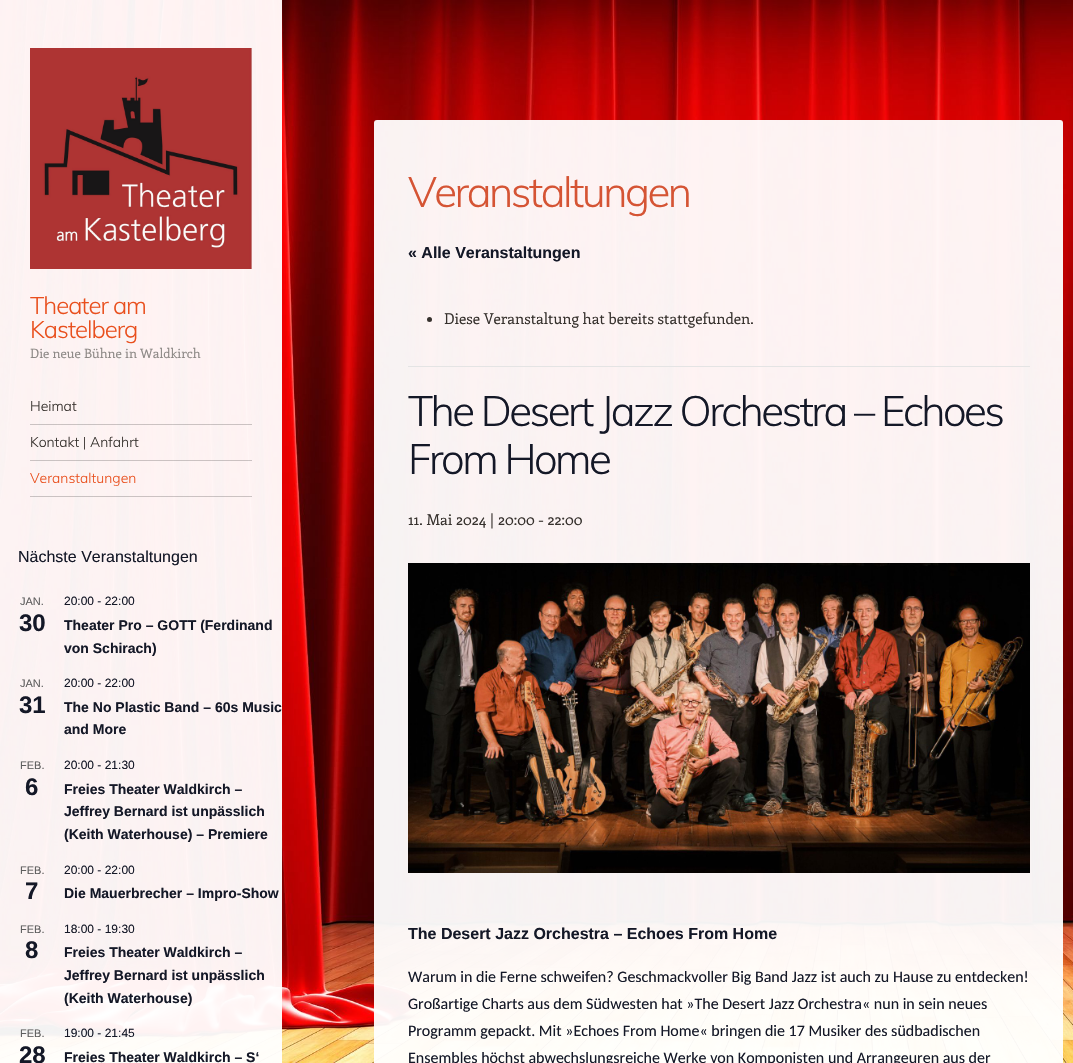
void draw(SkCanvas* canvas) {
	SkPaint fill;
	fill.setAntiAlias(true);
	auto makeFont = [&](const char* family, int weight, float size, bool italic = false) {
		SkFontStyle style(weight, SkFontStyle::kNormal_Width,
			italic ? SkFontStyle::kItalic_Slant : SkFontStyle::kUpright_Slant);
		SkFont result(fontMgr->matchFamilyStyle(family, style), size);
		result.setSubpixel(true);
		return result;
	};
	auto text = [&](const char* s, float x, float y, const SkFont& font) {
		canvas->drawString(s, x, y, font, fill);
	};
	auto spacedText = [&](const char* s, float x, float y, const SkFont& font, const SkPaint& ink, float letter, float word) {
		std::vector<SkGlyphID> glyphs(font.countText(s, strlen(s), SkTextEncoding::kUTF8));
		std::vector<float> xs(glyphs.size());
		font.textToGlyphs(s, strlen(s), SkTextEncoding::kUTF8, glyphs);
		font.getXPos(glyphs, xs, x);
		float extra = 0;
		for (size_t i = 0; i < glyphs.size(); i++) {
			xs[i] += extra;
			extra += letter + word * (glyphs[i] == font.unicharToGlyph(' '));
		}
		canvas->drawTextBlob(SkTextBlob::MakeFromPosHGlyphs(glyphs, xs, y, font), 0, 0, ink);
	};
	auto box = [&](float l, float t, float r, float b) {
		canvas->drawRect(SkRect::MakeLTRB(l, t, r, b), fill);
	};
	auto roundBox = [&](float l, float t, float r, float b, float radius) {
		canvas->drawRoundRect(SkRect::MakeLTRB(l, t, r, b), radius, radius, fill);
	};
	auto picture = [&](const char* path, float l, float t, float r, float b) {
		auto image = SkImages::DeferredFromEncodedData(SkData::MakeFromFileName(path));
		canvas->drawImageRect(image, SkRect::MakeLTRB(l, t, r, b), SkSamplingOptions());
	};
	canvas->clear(0xFFFFFFFF);
	picture("image0.png", 0, 0, 1073, 1063);
	fill.setColor(0xF2FFFFFF);
	box(0, 0, 282, 1063);
	roundBox(374, 120, 1063, 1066, 3);
	fill.setColor(0xFFE4E4E4);
	box(408, 366, 1030, 367);
	fill.setColor(0xFF36312D);
	canvas->drawCircle(429.5f, 319.5f, 2.5f, fill);
	picture("image1.png", 408, 563, 1030, 873);
	picture("image2.png", 30, 48, 252, 269);
	fill.setColor(0x33000000);
	box(30, 424, 252, 425);
	box(30, 460, 252, 461);
	box(30, 496, 252, 497);
	auto font1 = makeFont("Muli", 300, 42);
	fill.setColor(0xFFD55434);
	spacedText("Veranstaltungen", 408, 207, font1, fill, -2.5f, 0);
	auto font2 = makeFont("Liberation Sans", 700, 16);
	fill.setColor(0xFF141827);
	text("« Alle Veranstaltungen", 408, 258, font2);
	auto font3 = makeFont("Enriqueta", 400, 15);
	fill.setColor(0xFF36312D);
	text("Diese Veranstaltung hat bereits stattgefunden.", 444, 324, font3);
	fill.setColor(0xFF141827);
	spacedText("The Desert Jazz Orchestra – Echoes", 408, 426, font1, fill, -2.5f, 0);
	spacedText("From Home", 408, 474, font1, fill, -2.5f, 0);
	fill.setColor(0xFF36312D);
	text("11. Mai 2024 | 20:00 - 22:00", 408, 525, font3);
	fill.setColor(0xFF141827);
	text("The Desert Jazz Orchestra – Echoes From Home", 408, 939, font2);
	auto font4 = makeFont("Carlito", 400, 16);
	text("Warum in die Ferne schweifen? Geschmackvoller Big Band Jazz ist auch zu Hause zu entdecken!", 408, 982, font4);
	text("Großartige Charts aus dem Südwesten hat »The Desert Jazz Orchestra« nun in sein neues", 408, 1009, font4);
	text("Programm gepackt. Mit »Echoes From Home« bringen die 17 Musiker des südbadischen", 408, 1036, font4);
	text("Ensembles höchst abwechslungsreiche Werke von Komponisten und Arrangeuren aus der", 408, 1063, font4);
	auto font5 = makeFont("Muli", 300, 24);
	fill.setColor(0xFFE94F1D);
	spacedText("Theater am", 30, 314, font5, fill, -1, 0);
	spacedText("Kastelberg", 30, 338, font5, fill, -1, 0);
	auto font6 = makeFont("Enriqueta", 400, 13);
	fill.setColor(0xFF8C8885);
	text("Die neue Bühne in Waldkirch", 30, 358, font6);
	auto font7 = makeFont("Muli", 300, 14);
	fill.setColor(0xFF36312D);
	text("Heimat", 30, 411, font7);
	text("Kontakt | Anfahrt", 30, 447, font7);
	fill.setColor(0xFFE94F1D);
	text("Veranstaltungen", 30, 483, font7);
	auto font8 = makeFont("Liberation Sans", 400, 16);
	fill.setColor(0xFF141827);
	text("Nächste Veranstaltungen", 18, 562, font8);
	auto font9 = makeFont("Liberation Sans", 400, 11);
	fill.setColor(0xFF5D5D5D);
	text("JAN.", 20, 605, font9);
	auto font10 = makeFont("Liberation Sans", 700, 24);
	fill.setColor(0xFF141827);
	text("30", 19, 631, font10);
	auto font11 = makeFont("Liberation Sans", 400, 12);
	text("20:00 - 22:00", 64, 605, font11);
	auto font12 = makeFont("Liberation Sans", 700, 14);
	text("Theater Pro – GOTT (Ferdinand", 64, 630, font12);
	text("von Schirach)", 64, 653, font12);
	fill.setColor(0xFF5D5D5D);
	text("JAN.", 20, 687, font9);
	fill.setColor(0xFF141827);
	text("31", 19, 713, font10);
	text("20:00 - 22:00", 64, 687, font11);
	text("The No Plastic Band – 60s Music", 64, 712, font12);
	text("and More", 64, 734, font12);
	fill.setColor(0xFF5D5D5D);
	text("FEB.", 20, 769, font9);
	fill.setColor(0xFF141827);
	text("6", 25, 795, font10);
	text("20:00 - 21:30", 64, 769, font11);
	text("Freies Theater Waldkirch –", 64, 794, font12);
	text("Jeffrey Bernard ist unpässlich", 64, 816, font12);
	text("(Keith Waterhouse) – Premiere", 64, 839, font12);
	fill.setColor(0xFF5D5D5D);
	text("FEB.", 20, 874, font9);
	fill.setColor(0xFF141827);
	text("7", 25, 899, font10);
	text("20:00 - 22:00", 64, 874, font11);
	text("Die Mauerbrecher – Impro-Show", 64, 898, font12);
	fill.setColor(0xFF5D5D5D);
	text("FEB.", 20, 933, font9);
	fill.setColor(0xFF141827);
	text("8", 25, 958, font10);
	text("18:00 - 19:30", 64, 933, font11);
	text("Freies Theater Waldkirch –", 64, 957, font12);
	text("Jeffrey Bernard ist unpässlich", 64, 980, font12);
	text("(Keith Waterhouse)", 64, 1003, font12);
	fill.setColor(0xFF5D5D5D);
	text("FEB.", 20, 1037, font9);
	fill.setColor(0xFF141827);
	text("28", 19, 1063, font10);
	text("19:00 - 21:45", 64, 1037, font11);
	text("Freies Theater Waldkirch – S‘", 64, 1062, font12);
}
